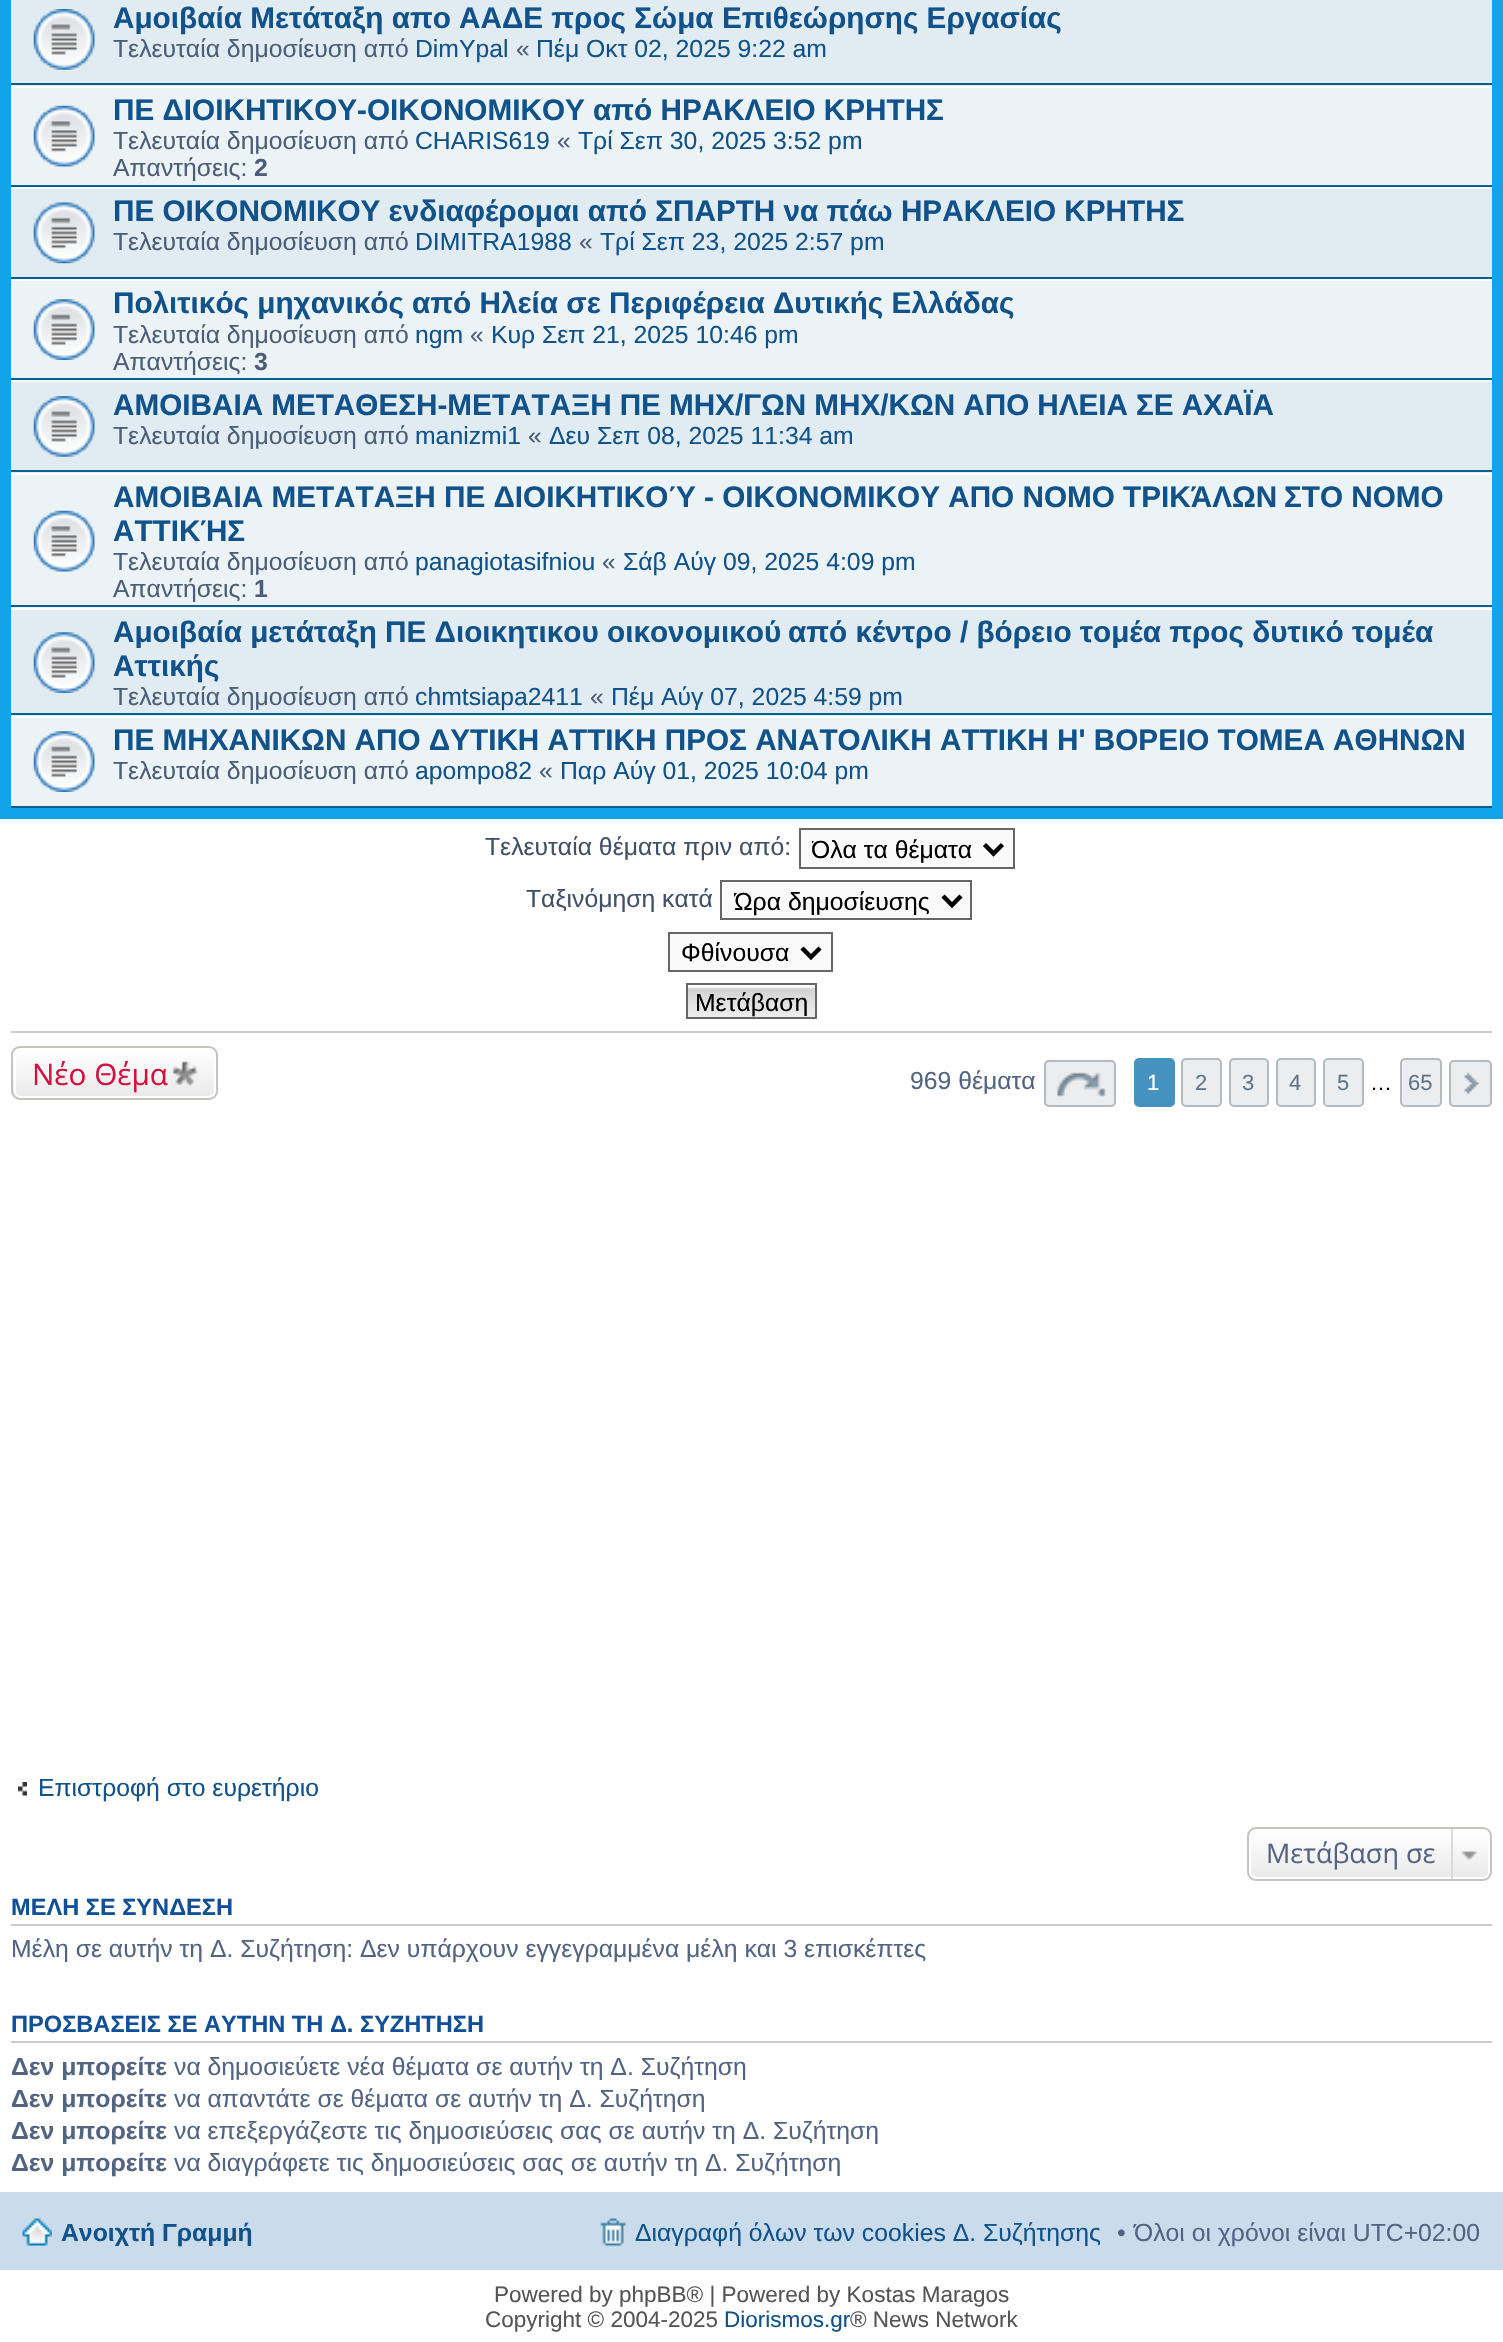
void draw(SkCanvas* canvas) {
	SkPaint fill;
	fill.setAntiAlias(true);
	auto makeFont = [&](const char* family, int weight, float size, bool italic = false) {
		SkFontStyle style(weight, SkFontStyle::kNormal_Width,
			italic ? SkFontStyle::kItalic_Slant : SkFontStyle::kUpright_Slant);
		SkFont result(fontMgr->matchFamilyStyle(family, style), size);
		result.setSubpixel(true);
		return result;
	};
	auto text = [&](const char* s, float x, float y, const SkFont& font) {
		canvas->drawString(s, x, y, font, fill);
	};
	auto spacedText = [&](const char* s, float x, float y, const SkFont& font, const SkPaint& ink, float letter, float word) {
		std::vector<SkGlyphID> glyphs(font.countText(s, strlen(s), SkTextEncoding::kUTF8));
		std::vector<float> xs(glyphs.size());
		font.textToGlyphs(s, strlen(s), SkTextEncoding::kUTF8, glyphs);
		font.getXPos(glyphs, xs, x);
		float extra = 0;
		for (size_t i = 0; i < glyphs.size(); i++) {
			xs[i] += extra;
			extra += letter + word * (glyphs[i] == font.unicharToGlyph(' '));
		}
		canvas->drawTextBlob(SkTextBlob::MakeFromPosHGlyphs(glyphs, xs, y, font), 0, 0, ink);
	};
	auto box = [&](float l, float t, float r, float b) {
		canvas->drawRect(SkRect::MakeLTRB(l, t, r, b), fill);
	};
	auto roundBox = [&](float l, float t, float r, float b, float radius) {
		canvas->drawRoundRect(SkRect::MakeLTRB(l, t, r, b), radius, radius, fill);
	};
	auto picture = [&](const char* path, float l, float t, float r, float b) {
		auto image = SkImages::DeferredFromEncodedData(SkData::MakeFromFileName(path));
		canvas->drawImageRect(image, SkRect::MakeLTRB(l, t, r, b), SkSamplingOptions());
	};
	canvas->clear(0xFFFFFFFF);
	fill.setColor(0xFF12A3EB);
	box(0, 0, 1503, 819);
	fill.setColor(0xFFE1EBF2);
	box(11, 0, 1492, 86);
	fill.setColor(0xFF00608F);
	box(11, 83, 1492, 85);
	picture("image0.png", 33, 9, 95, 70);
	fill.setColor(0xFFECF3F7);
	box(11, 88, 1492, 185);
	fill.setColor(0xFFFFFFFF);
	box(11, 86, 1492, 88);
	fill.setColor(0xFF00608F);
	box(11, 185, 1492, 187);
	picture("image1.png", 33, 105, 95, 167);
	fill.setColor(0xFFE1EBF2);
	box(11, 189, 1492, 277);
	fill.setColor(0xFFFFFFFF);
	box(11, 187, 1492, 189);
	fill.setColor(0xFF00608F);
	box(11, 277, 1492, 279);
	picture("image2.png", 33, 202, 95, 264);
	fill.setColor(0xFFECF3F7);
	box(11, 281, 1492, 378);
	fill.setColor(0xFFFFFFFF);
	box(11, 279, 1492, 281);
	fill.setColor(0xFF00608F);
	box(11, 378, 1492, 380);
	picture("image3.png", 33, 299, 95, 360);
	fill.setColor(0xFFE1EBF2);
	box(11, 382, 1492, 473);
	fill.setColor(0xFFFFFFFF);
	box(11, 380, 1492, 382);
	fill.setColor(0xFF00608F);
	box(11, 470, 1492, 472);
	picture("image0.png", 33, 396, 95, 457);
	fill.setColor(0xFFECF3F7);
	box(11, 475, 1492, 608);
	fill.setColor(0xFFFFFFFF);
	box(11, 473, 1492, 475);
	fill.setColor(0xFF00608F);
	box(11, 605, 1492, 607);
	picture("image1.png", 33, 510, 95, 572);
	fill.setColor(0xFFE1EBF2);
	box(11, 610, 1492, 716);
	fill.setColor(0xFFFFFFFF);
	box(11, 608, 1492, 610);
	fill.setColor(0xFF00608F);
	box(11, 713, 1492, 715);
	picture("image4.png", 33, 632, 95, 693);
	fill.setColor(0xFFECF3F7);
	box(11, 718, 1492, 806);
	fill.setColor(0xFFFFFFFF);
	box(11, 716, 1492, 718);
	fill.setColor(0xFF00608F);
	box(11, 806, 1492, 808);
	picture("image3.png", 33, 731, 95, 792);
	fill.setColor(0xFFFAFAFA);
	canvas->drawRect(SkRect::MakeLTRB(800, 829, 1014, 868), fill);
	fill.setStyle(SkPaint::kStroke_Style);
	fill.setStrokeWidth(2);
	fill.setColor(0xFF666666);
	canvas->drawRect(SkRect::MakeLTRB(800, 829, 1014, 868), fill);
	fill.setStrokeWidth(4.5f);
	fill.setColor(0xFF000000);
	canvas->drawPath(SkPathBuilder().moveTo(984.5f, 844.5f).lineTo(993.5f, 853.5f).lineTo(1002.5f, 844.5f).detach(), fill);
	fill.setStyle(SkPaint::kFill_Style);
	fill.setColor(0xFFFAFAFA);
	canvas->drawRect(SkRect::MakeLTRB(721, 881, 971, 919), fill);
	fill.setStyle(SkPaint::kStroke_Style);
	fill.setStrokeWidth(2);
	fill.setColor(0xFF666666);
	canvas->drawRect(SkRect::MakeLTRB(721, 881, 971, 919), fill);
	fill.setStrokeWidth(4.5f);
	fill.setColor(0xFF000000);
	canvas->drawPath(SkPathBuilder().moveTo(943, 896).lineTo(952, 905).lineTo(961, 896).detach(), fill);
	fill.setStyle(SkPaint::kFill_Style);
	fill.setColor(0xFFFAFAFA);
	canvas->drawRect(SkRect::MakeLTRB(669, 933, 832, 971), fill);
	fill.setStyle(SkPaint::kStroke_Style);
	fill.setStrokeWidth(2);
	fill.setColor(0xFF666666);
	canvas->drawRect(SkRect::MakeLTRB(669, 933, 832, 971), fill);
	fill.setStrokeWidth(4.5f);
	fill.setColor(0xFF000000);
	canvas->drawPath(SkPathBuilder().moveTo(802, 948).lineTo(811, 957).lineTo(820, 948).detach(), fill);
	fill.setStyle(SkPaint::kFill_Style);
	fill.setColor(0xFFFAFAFA);
	box(688, 985, 815, 986);
	picture("image5.png", 686, 986, 817, 1020);
	fill.setStyle(SkPaint::kStroke_Style);
	fill.setStrokeWidth(2);
	fill.setColor(0xFF666666);
	canvas->drawRect(SkRect::MakeLTRB(687, 984, 816, 1018), fill);
	fill.setStyle(SkPaint::kFill_Style);
	fill.setColor(0xFFCCCCCC);
	box(11, 1031, 1492, 1033);
	canvas->save();
	canvas->clipPath(SkPathBuilder().moveTo(20, 1046).lineTo(209, 1046).cubicTo(214, 1046, 218, 1050, 218, 1055).lineTo(218, 1091).cubicTo(218, 1096, 214, 1100, 209, 1100).lineTo(20, 1100).cubicTo(15, 1100, 11, 1096, 11, 1091).lineTo(11, 1055).cubicTo(11, 1050, 15, 1046, 20, 1046).close().detach(), true);
	{
		const SkColor colors[] = {0xFFFFFFFF, 0xFFE9E9E9};
		const float stops[] = {0, 1};
		const SkPoint ends[] = {{115, 1049}, {115, 1098}};
		fill.setShader(SkGradientShader::MakeLinear(ends, colors, stops, 2, SkTileMode::kClamp));
		fill.setAlpha(255);
	}
	box(11, 1049, 218, 1098);
	canvas->restore();
	fill.setStyle(SkPaint::kStroke_Style);
	fill.setShader(nullptr);
	fill.setColor(0xFFFFFFFF);
	canvas->drawRoundRect(SkRect::MakeLTRB(15, 1050, 215, 1097), 6, 6, fill);
	fill.setColor(0xFFC7C3BF);
	canvas->drawRoundRect(SkRect::MakeLTRB(12, 1047, 217, 1099), 8, 8, fill);
	picture("image6.png", 172, 1061, 198, 1087);
	fill.setStyle(SkPaint::kFill_Style);
	fill.setColor(0xFFECEDEE);
	roundBox(1044, 1060, 1116, 1107, 5);
	picture("image7.png", 1057, 1072, 1106, 1097);
	fill.setStyle(SkPaint::kStroke_Style);
	fill.setColor(0xFFB4BAC0);
	canvas->drawRoundRect(SkRect::MakeLTRB(1045, 1061, 1115, 1106), 4, 4, fill);
	fill.setStyle(SkPaint::kFill_Style);
	fill.setColor(0xFF4692BF);
	canvas->drawRoundRect(SkRect::MakeLTRB(1135, 1059, 1174, 1106), 4, 4, fill);
	fill.setStyle(SkPaint::kStroke_Style);
	canvas->drawRoundRect(SkRect::MakeLTRB(1135, 1059, 1174, 1106), 4, 4, fill);
	fill.setStyle(SkPaint::kFill_Style);
	fill.setColor(0xFFECEDEE);
	canvas->drawRoundRect(SkRect::MakeLTRB(1182, 1059, 1221, 1106), 4, 4, fill);
	fill.setStyle(SkPaint::kStroke_Style);
	fill.setColor(0xFFB4BAC0);
	canvas->drawRoundRect(SkRect::MakeLTRB(1182, 1059, 1221, 1106), 4, 4, fill);
	fill.setStyle(SkPaint::kFill_Style);
	fill.setColor(0xFFECEDEE);
	canvas->drawRoundRect(SkRect::MakeLTRB(1230, 1059, 1268, 1106), 4, 4, fill);
	fill.setStyle(SkPaint::kStroke_Style);
	fill.setColor(0xFFB4BAC0);
	canvas->drawRoundRect(SkRect::MakeLTRB(1230, 1059, 1268, 1106), 4, 4, fill);
	fill.setStyle(SkPaint::kFill_Style);
	fill.setColor(0xFFECEDEE);
	canvas->drawRoundRect(SkRect::MakeLTRB(1277, 1059, 1315, 1106), 4, 4, fill);
	fill.setStyle(SkPaint::kStroke_Style);
	fill.setColor(0xFFB4BAC0);
	canvas->drawRoundRect(SkRect::MakeLTRB(1277, 1059, 1315, 1106), 4, 4, fill);
	fill.setStyle(SkPaint::kFill_Style);
	fill.setColor(0xFFECEDEE);
	canvas->drawRoundRect(SkRect::MakeLTRB(1324, 1059, 1363, 1106), 4, 4, fill);
	fill.setStyle(SkPaint::kStroke_Style);
	fill.setColor(0xFFB4BAC0);
	canvas->drawRoundRect(SkRect::MakeLTRB(1324, 1059, 1363, 1106), 4, 4, fill);
	fill.setStyle(SkPaint::kFill_Style);
	fill.setColor(0xFFECEDEE);
	canvas->drawRoundRect(SkRect::MakeLTRB(1401, 1059, 1441, 1106), 4, 4, fill);
	fill.setStyle(SkPaint::kStroke_Style);
	fill.setColor(0xFFB4BAC0);
	canvas->drawRoundRect(SkRect::MakeLTRB(1401, 1059, 1441, 1106), 4, 4, fill);
	fill.setStyle(SkPaint::kFill_Style);
	fill.setColor(0xFFECEDEE);
	roundBox(1449, 1060, 1492, 1107, 5);
	picture("image8.png", 1464, 1072, 1479, 1095);
	fill.setStyle(SkPaint::kStroke_Style);
	fill.setColor(0xFFB4BAC0);
	canvas->drawRoundRect(SkRect::MakeLTRB(1450, 1061, 1491, 1106), 4, 4, fill);
	picture("image9.png", 18, 1782, 27, 1796);
	canvas->save();
	canvas->clipPath(SkPathBuilder().moveTo(1256, 1827).lineTo(1483, 1827).cubicTo(1488, 1827, 1492, 1831, 1492, 1836).lineTo(1492, 1872).cubicTo(1492, 1877, 1488, 1881, 1483, 1881).lineTo(1256, 1881).cubicTo(1251, 1881, 1247, 1877, 1247, 1872).lineTo(1247, 1836).cubicTo(1247, 1831, 1251, 1827, 1256, 1827).close().detach(), true);
	fill.setStyle(SkPaint::kFill_Style);
	{
		const SkColor colors[] = {0xFFFFFFFF, 0xFFE9E9E9};
		const float stops[] = {0, 1};
		const SkPoint ends[] = {{1369, 1829}, {1369, 1879}};
		fill.setShader(SkGradientShader::MakeLinear(ends, colors, stops, 2, SkTileMode::kClamp));
		fill.setAlpha(255);
	}
	box(1247, 1829, 1492, 1879);
	canvas->restore();
	fill.setStyle(SkPaint::kStroke_Style);
	fill.setShader(nullptr);
	fill.setColor(0xFFFFFFFF);
	canvas->drawRoundRect(SkRect::MakeLTRB(1250, 1830, 1489, 1878), 6, 6, fill);
	fill.setColor(0xFFC7C3BF);
	canvas->drawRoundRect(SkRect::MakeLTRB(1248, 1828, 1491, 1880), 8, 8, fill);
	picture("image10.png", 1461, 1851, 1477, 1860);
	fill.setStyle(SkPaint::kFill_Style);
	fill.setColor(0xFFDADADA);
	box(1451, 1829, 1453, 1879);
	fill.setColor(0xFFCCCCCC);
	box(11, 1924, 1492, 1926);
	box(11, 2041, 1492, 2043);
	fill.setColor(0xFFCADCEB);
	box(0, 2192, 1503, 2270);
	picture("image11.png", 22, 2218, 52, 2246);
	picture("image12.png", 600, 2218, 627, 2247);
	auto font1 = makeFont("Liberation Sans", 700, 29.7f);
	fill.setColor(0xFF105289);
	text("Αμοιβαία Μετάταξη απο ΑΑΔΕ προς Σώμα Επιθεώρησης Εργασίας", 113, 28, font1);
	auto font2 = makeFont("Liberation Sans", 400, 24.75f);
	fill.setColor(0xFF4C5D77);
	text("Τελευταία δημοσίευση από", 113, 57, font2);
	fill.setColor(0xFF105289);
	text("DimYpal", 415, 57, font2);
	fill.setColor(0xFF4C5D77);
	text("«", 516, 57, font2);
	fill.setColor(0xFF105289);
	text("Πέμ Οκτ 02, 2025 9:22 am", 536, 57, font2);
	text("ΠΕ ΔΙΟΙΚΗΤΙΚΟΥ-ΟΙΚΟΝΟΜΙΚΟΥ από ΗΡΑΚΛΕΙΟ ΚΡΗΤΗΣ", 113, 120, font1);
	fill.setColor(0xFF4C5D77);
	text("Τελευταία δημοσίευση από", 113, 149, font2);
	fill.setColor(0xFF105289);
	text("CHARIS619", 415, 149, font2);
	fill.setColor(0xFF4C5D77);
	text("«", 557, 149, font2);
	fill.setColor(0xFF105289);
	text("Τρί Σεπ 30, 2025 3:52 pm", 578, 149, font2);
	fill.setColor(0xFF4C5D77);
	text("Απαντήσεις:", 113, 176, font2);
	auto font3 = makeFont("Liberation Sans", 700, 24.75f);
	text("2", 254, 176, font3);
	fill.setColor(0xFF105289);
	text("ΠΕ ΟΙΚΟΝΟΜΙΚΟΥ ενδιαφέρομαι από ΣΠΑΡΤΗ να πάω ΗΡΑΚΛΕΙΟ ΚΡΗΤΗΣ", 113, 221, font1);
	fill.setColor(0xFF4C5D77);
	text("Τελευταία δημοσίευση από", 113, 250, font2);
	fill.setColor(0xFF105289);
	text("DIMITRA1988", 415, 250, font2);
	fill.setColor(0xFF4C5D77);
	text("«", 579, 250, font2);
	fill.setColor(0xFF105289);
	text("Τρί Σεπ 23, 2025 2:57 pm", 600, 250, font2);
	text("Πολιτικός μηχανικός από Ηλεία σε Περιφέρεια Δυτικής Ελλάδας", 113, 313, font1);
	fill.setColor(0xFF4C5D77);
	text("Τελευταία δημοσίευση από", 113, 343, font2);
	fill.setColor(0xFF105289);
	text("ngm", 415, 343, font2);
	fill.setColor(0xFF4C5D77);
	text("«", 470, 343, font2);
	fill.setColor(0xFF105289);
	text("Κυρ Σεπ 21, 2025 10:46 pm", 491, 343, font2);
	fill.setColor(0xFF4C5D77);
	text("Απαντήσεις:", 113, 370, font2);
	text("3", 254, 370, font3);
	fill.setColor(0xFF105289);
	spacedText("ΑΜΟΙΒΑΙΑ ΜΕΤΑΘΕΣΗ-ΜΕΤΑΤΑΞΗ ΠΕ ΜΗΧ/ΓΩΝ ΜΗΧ/ΚΩΝ ΑΠΟ ΗΛΕΙΑ ΣΕ ΑΧΑΪΑ", 113, 415, font1, fill, 0, -0.25f);
	fill.setColor(0xFF4C5D77);
	text("Τελευταία δημοσίευση από", 113, 444, font2);
	fill.setColor(0xFF105289);
	text("manizmi1", 415, 444, font2);
	fill.setColor(0xFF4C5D77);
	text("«", 528, 444, font2);
	fill.setColor(0xFF105289);
	text("Δευ Σεπ 08, 2025 11:34 am", 549, 444, font2);
	text("ΑΜΟΙΒΑΙΑ ΜΕΤΑΤΑΞΗ ΠΕ ΔΙΟΙΚΗΤΙΚΟΎ - ΟΙΚΟΝΟΜΙΚΟΥ ΑΠΟ ΝΟΜΟ ΤΡΙΚΆΛΩΝ", 113, 507, font1);
	text("ΣΤΟ ΝΟΜΟ", 1284, 507, font1);
	text("ΑΤΤΙΚΉΣ", 113, 541, font1);
	fill.setColor(0xFF4C5D77);
	text("Τελευταία δημοσίευση από", 113, 570, font2);
	fill.setColor(0xFF105289);
	text("panagiotasifniou", 415, 570, font2);
	fill.setColor(0xFF4C5D77);
	text("«", 602, 570, font2);
	fill.setColor(0xFF105289);
	text("Σάβ Αύγ 09, 2025 4:09 pm", 623, 570, font2);
	fill.setColor(0xFF4C5D77);
	text("Απαντήσεις:", 113, 597, font2);
	text("1", 254, 597, font3);
	fill.setColor(0xFF105289);
	text("Αμοιβαία μετάταξη ΠΕ Διοικητικου οικονομικού", 113, 642, font1);
	text("από κέντρο / βόρειο τομέα προς δυτικό τομέα", 788, 642, font1);
	text("Αττικής", 113, 676, font1);
	fill.setColor(0xFF4C5D77);
	text("Τελευταία δημοσίευση από", 113, 705, font2);
	fill.setColor(0xFF105289);
	text("chmtsiapa2411", 415, 705, font2);
	fill.setColor(0xFF4C5D77);
	text("«", 590, 705, font2);
	fill.setColor(0xFF105289);
	text("Πέμ Αύγ 07, 2025 4:59 pm", 611, 705, font2);
	text("ΠΕ ΜΗΧΑΝΙΚΩΝ ΑΠΟ ΔΥΤΙΚΗ ΑΤΤΙΚΗ ΠΡΟΣ ΑΝΑΤΟΛΙΚΗ ΑΤΤΙΚΗ Η' ΒΟΡΕΙΟ ΤΟΜΕΑ ΑΘΗΝΩΝ", 113, 750, font1);
	fill.setColor(0xFF4C5D77);
	text("Τελευταία δημοσίευση από", 113, 779, font2);
	fill.setColor(0xFF105289);
	text("apompo82", 415, 779, font2);
	fill.setColor(0xFF4C5D77);
	text("«", 539, 779, font2);
	fill.setColor(0xFF105289);
	text("Παρ Αύγ 01, 2025 10:04 pm", 560, 779, font2);
	fill.setColor(0xFF425067);
	text("Τελευταία θέματα πριν από:", 485, 855, font2);
	canvas->save();
	canvas->clipRect(SkRect::MakeLTRB(812, 833, 974, 864));
	fill.setColor(0xFF000000);
	text("Όλα τα θέματα", 811, 858, font2);
	canvas->restore();
	fill.setColor(0xFF425067);
	text("Ταξινόμηση κατά", 526, 907, font2);
	canvas->save();
	canvas->clipRect(SkRect::MakeLTRB(734, 884, 932, 916));
	fill.setColor(0xFF000000);
	text("Ώρα δημοσίευσης", 734, 910, font2);
	canvas->restore();
	text("Φθίνουσα", 681, 961, font2);
	text("Μετάβαση", 695, 1011, font2);
	auto font4 = makeFont("Open Sans", 400, 29.7f);
	fill.setColor(0xFFD31141);
	text("Νέο Θέμα", 32, 1085, font4);
	fill.setColor(0xFF536482);
	text("969 θέματα", 910, 1089, font2);
	auto font5 = makeFont("Liberation Sans", 400, 22);
	fill.setColor(0xFFFFFFFF);
	text("1", 1147, 1090, font5);
	fill.setColor(0xFF5C758C);
	text("2", 1195, 1090, font5);
	text("3", 1242, 1090, font5);
	text("4", 1289, 1090, font5);
	text("5", 1337, 1090, font5);
	fill.setColor(0xFF000000);
	text("…", 1370, 1090, font5);
	fill.setColor(0xFF5C758C);
	text("65", 1408, 1090, font5);
	fill.setColor(0xFF105289);
	text("Επιστροφή στο ευρετήριο", 38, 1796, font2);
	auto font6 = makeFont("Open Sans", 400, 27);
	fill.setColor(0xFF536482);
	text("Μετάβαση σε", 1266, 1863, font6);
	auto font7 = makeFont("Liberation Sans", 700, 23.6f);
	fill.setColor(0xFF115098);
	text("ΜΕΛΗ ΣΕ ΣΥΝΔΕΣΗ", 11, 1915, font7);
	fill.setColor(0xFF536482);
	text("Μέλη σε αυτήν τη Δ. Συζήτηση: Δεν υπάρχουν εγγεγραμμένα μέλη και 3 επισκέπτες", 11, 1957, font2);
	fill.setColor(0xFF115098);
	text("ΠΡΟΣΒΑΣΕΙΣ ΣΕ ΑΥΤΗΝ ΤΗ Δ. ΣΥΖΗΤΗΣΗ", 11, 2032, font7);
	fill.setColor(0xFF536482);
	text("Δεν μπορείτε", 11, 2075, font3);
	text("να δημοσιεύετε νέα θέματα σε αυτήν τη Δ. Συζήτηση", 174, 2075, font2);
	text("Δεν μπορείτε", 11, 2107, font3);
	text("να απαντάτε σε θέματα σε αυτήν τη Δ. Συζήτηση", 174, 2107, font2);
	text("Δεν μπορείτε", 11, 2139, font3);
	text("να επεξεργάζεστε τις δημοσιεύσεις σας σε αυτήν τη Δ. Συζήτηση", 174, 2139, font2);
	text("Δεν μπορείτε", 11, 2171, font3);
	text("να διαγράφετε τις δημοσιεύσεις σας σε αυτήν τη Δ. Συζήτηση", 174, 2171, font2);
	fill.setColor(0xFF105289);
	text("Ανοιχτή Γραμμή", 61, 2241, font3);
	text("Διαγραφή όλων των cookies Δ. Συζήτησης", 635, 2241, font2);
	fill.setColor(0xFF536482);
	text("•", 1117, 2241, font2);
	text("Όλοι οι χρόνοι είναι UTC+02:00", 1134, 2241, font2);
	auto font8 = makeFont("Liberation Sans", 400, 22.5f);
	fill.setColor(0xFF555555);
	text("Powered by phpBB® | Powered by Kostas Maragos", 494, 2302, font8);
	text("Copyright © 2004-2025", 485, 2327, font8);
	fill.setColor(0xFF105289);
	text("Diorismos.gr", 724, 2327, font8);
	fill.setColor(0xFF555555);
	text("® News Network", 850, 2327, font8);
}
